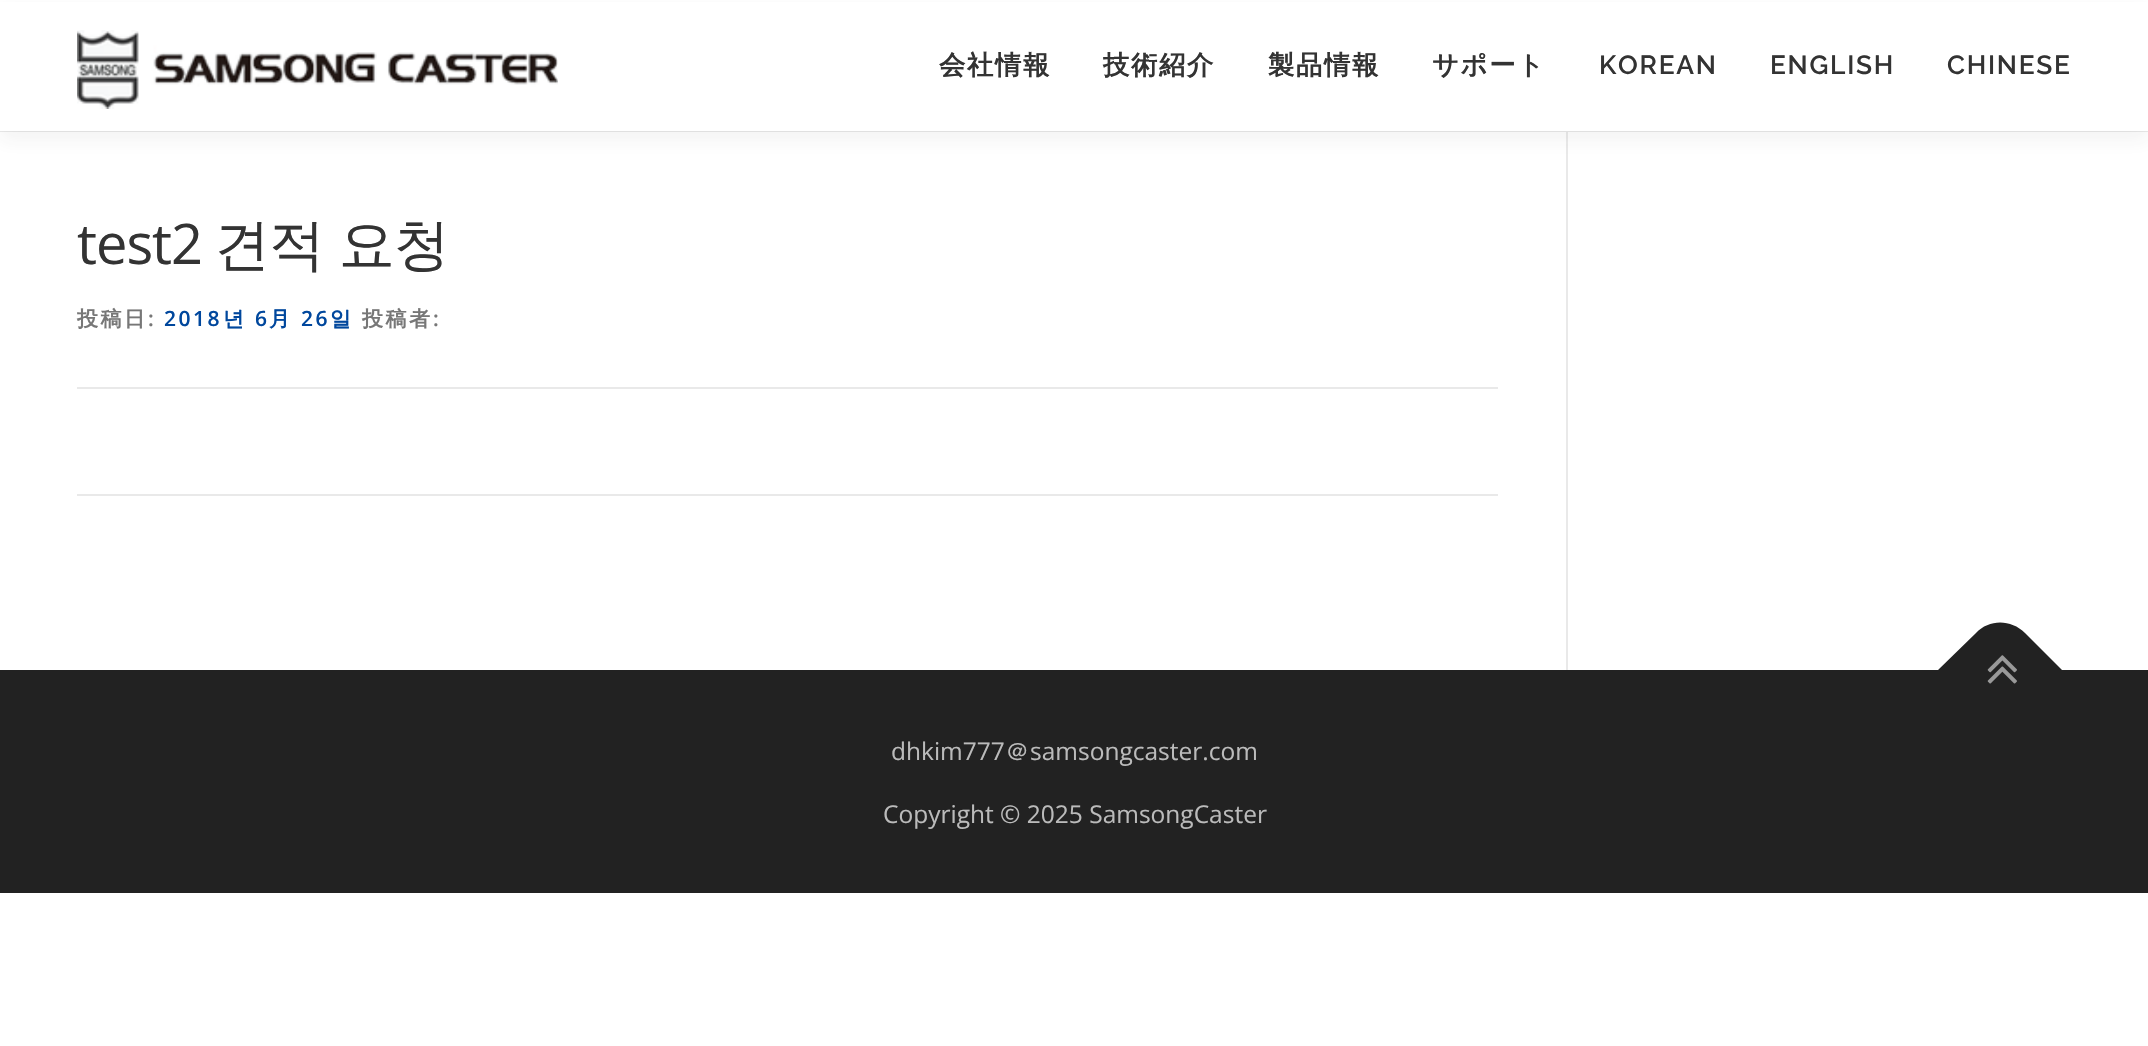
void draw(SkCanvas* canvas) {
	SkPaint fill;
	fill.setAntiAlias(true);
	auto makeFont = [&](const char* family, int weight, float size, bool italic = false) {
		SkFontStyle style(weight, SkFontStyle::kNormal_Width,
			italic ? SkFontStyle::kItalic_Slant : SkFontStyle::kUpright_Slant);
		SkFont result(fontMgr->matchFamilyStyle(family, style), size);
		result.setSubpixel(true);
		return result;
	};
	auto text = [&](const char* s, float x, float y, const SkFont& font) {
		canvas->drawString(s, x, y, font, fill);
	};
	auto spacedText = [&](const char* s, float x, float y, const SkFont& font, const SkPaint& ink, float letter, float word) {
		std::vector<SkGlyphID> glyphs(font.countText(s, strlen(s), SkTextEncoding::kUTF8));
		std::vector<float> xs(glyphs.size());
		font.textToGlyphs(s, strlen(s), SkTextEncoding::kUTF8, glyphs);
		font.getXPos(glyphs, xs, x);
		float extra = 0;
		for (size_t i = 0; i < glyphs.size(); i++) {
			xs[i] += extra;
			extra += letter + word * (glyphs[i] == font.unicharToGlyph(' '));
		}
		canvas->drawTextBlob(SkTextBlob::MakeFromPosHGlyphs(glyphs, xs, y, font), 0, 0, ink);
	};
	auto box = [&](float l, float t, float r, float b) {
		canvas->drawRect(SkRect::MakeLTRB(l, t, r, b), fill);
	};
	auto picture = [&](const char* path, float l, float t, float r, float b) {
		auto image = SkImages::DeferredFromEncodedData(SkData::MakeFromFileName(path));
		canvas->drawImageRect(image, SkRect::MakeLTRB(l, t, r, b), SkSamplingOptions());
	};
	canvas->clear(0xFFFFFFFF);
	fill.setColor(0xFFE9E9E9);
	box(0, 131, 2148, 132);
	box(1566, 131, 1568, 670);
	fill.setColor(0x0F323232);
	fill.setMaskFilter(SkMaskFilter::MakeBlur(kNormal_SkBlurStyle, 9));
	canvas->drawRect(SkRect::MakeLTRB(0, 9, 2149, 140), fill);
	fill.setMaskFilter(nullptr);
	fill.setColor(0xFFFFFFFF);
	box(0, 2, 2148, 131);
	picture("image0.png", 77, 30, 558, 109);
	fill.setColor(0xFFE9E9E9);
	box(77, 387, 1498, 389);
	box(77, 494, 1498, 496);
	fill.setColor(0xFF222222);
	box(0, 670, 2148, 893);
	canvas->drawPath(SkPathBuilder().moveTo(1938, 670).lineTo(1976, 633).cubicTo(1989, 619, 2011, 619, 2025, 633).lineTo(2062, 670).lineTo(2000, 732).close().detach(), fill);
	picture("image1.png", 1987, 655, 2017, 684);
	auto font1 = makeFont("WenQuanYi Zen Hei", 700, 26.25f);
	fill.setColor(0xFF333333);
	spacedText("会社情報", 939, 74, font1, fill, 1.75f, 0);
	spacedText("技術紹介", 1103, 74, font1, fill, 1.75f, 0);
	spacedText("製品情報", 1268, 74, font1, fill, 1.75f, 0);
	spacedText("サポート", 1432, 74, font1, fill, 1.75f, 0);
	auto font2 = makeFont("Raleway", 600, 26.25f);
	spacedText("KOREAN", 1599, 74, font2, fill, 1.75f, 0);
	spacedText("ENGLISH", 1770, 74, font2, fill, 1.75f, 0);
	spacedText("CHINESE", 1947, 74, font2, fill, 1.75f, 0);
	auto font3 = makeFont("Open Sans", 400, 56);
	spacedText("test2", 77, 264, font3, fill, -1, 0);
	auto font4 = makeFont("WenQuanYi Zen Hei", 500, 56);
	spacedText("견적 요청", 214, 264, font4, fill, -1, -1);
	auto font5 = makeFont("WenQuanYi Zen Hei", 700, 21);
	fill.setColor(0xFF777777);
	spacedText("投稿日", 77, 326, font5, fill, 2.5f, 0);
	auto font6 = makeFont("Open Sans", 600, 21);
	spacedText(":", 148, 326, font6, fill, 2.5f, 0);
	fill.setColor(0xFF00479D);
	spacedText("2018", 164, 326, font6, fill, 2.5f, 0);
	spacedText("년", 223, 326, font5, fill, 2.5f, 0);
	spacedText("6", 255, 326, font6, fill, 2.5f, 0);
	spacedText("月", 269, 326, font5, fill, 2.5f, 0);
	spacedText("26", 301, 326, font6, fill, 2.5f, 0);
	spacedText("일", 330, 326, font5, fill, 2.5f, 0);
	fill.setColor(0xFF777777);
	spacedText("投稿者", 362, 326, font5, fill, 2.5f, 0);
	spacedText(":", 433, 326, font6, fill, 2.5f, 0);
	auto font7 = makeFont("Open Sans", 400, 24.5f);
	fill.setColor(0xFFBBBBBB);
	text("dhkim777", 891, 760, font7);
	auto font8 = makeFont("WenQuanYi Zen Hei", 500, 24.5f);
	text("＠", 1005, 760, font8);
	text("samsongcaster.com", 1030, 760, font7);
	text("Copyright © 2025 SamsongCaster", 883, 823, font7);
}
